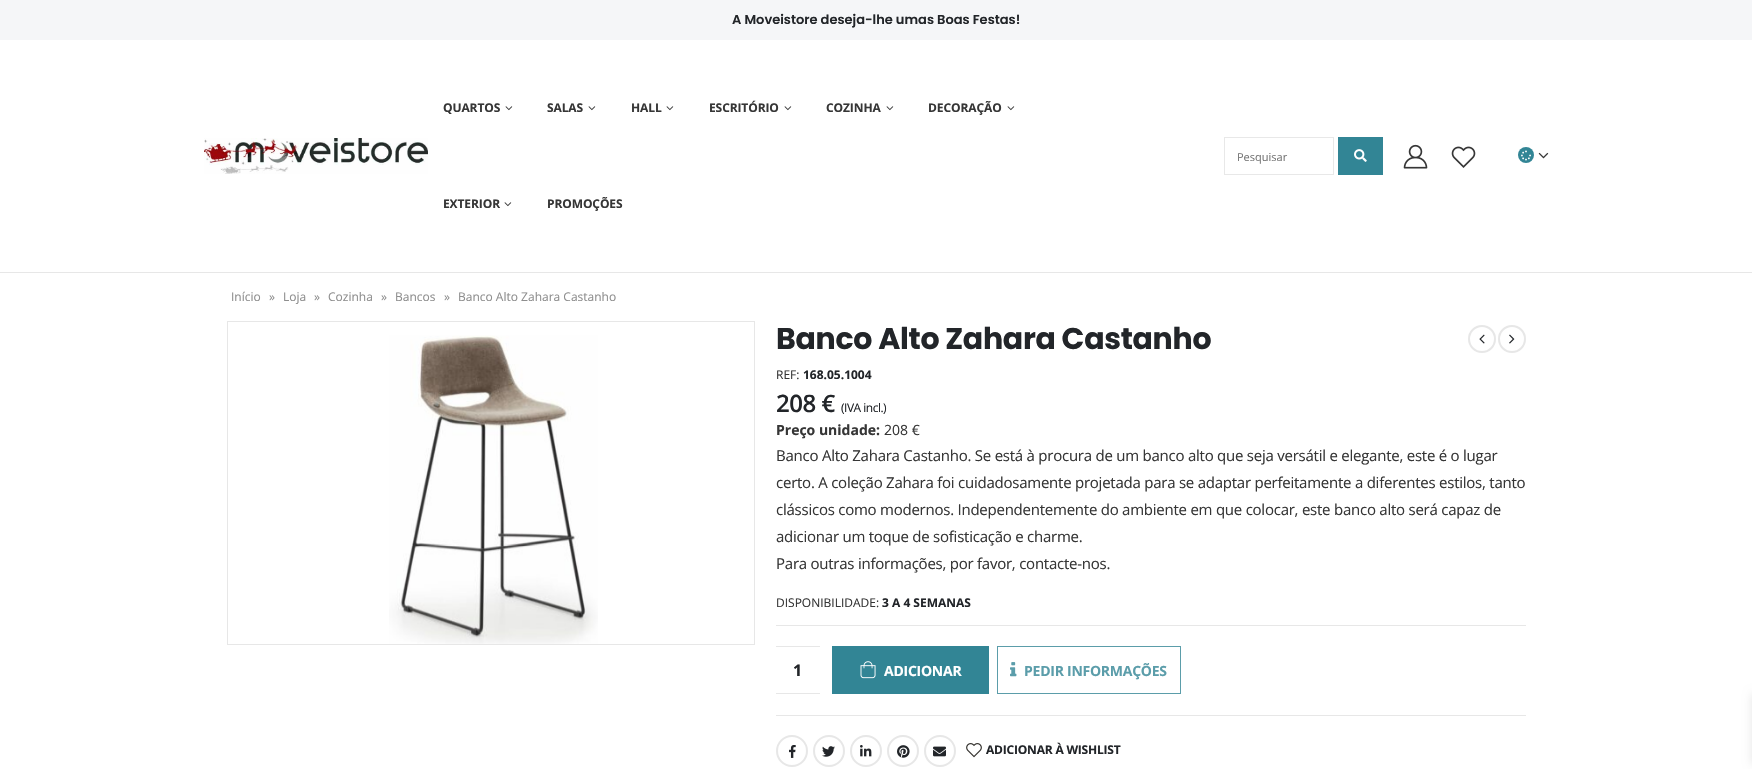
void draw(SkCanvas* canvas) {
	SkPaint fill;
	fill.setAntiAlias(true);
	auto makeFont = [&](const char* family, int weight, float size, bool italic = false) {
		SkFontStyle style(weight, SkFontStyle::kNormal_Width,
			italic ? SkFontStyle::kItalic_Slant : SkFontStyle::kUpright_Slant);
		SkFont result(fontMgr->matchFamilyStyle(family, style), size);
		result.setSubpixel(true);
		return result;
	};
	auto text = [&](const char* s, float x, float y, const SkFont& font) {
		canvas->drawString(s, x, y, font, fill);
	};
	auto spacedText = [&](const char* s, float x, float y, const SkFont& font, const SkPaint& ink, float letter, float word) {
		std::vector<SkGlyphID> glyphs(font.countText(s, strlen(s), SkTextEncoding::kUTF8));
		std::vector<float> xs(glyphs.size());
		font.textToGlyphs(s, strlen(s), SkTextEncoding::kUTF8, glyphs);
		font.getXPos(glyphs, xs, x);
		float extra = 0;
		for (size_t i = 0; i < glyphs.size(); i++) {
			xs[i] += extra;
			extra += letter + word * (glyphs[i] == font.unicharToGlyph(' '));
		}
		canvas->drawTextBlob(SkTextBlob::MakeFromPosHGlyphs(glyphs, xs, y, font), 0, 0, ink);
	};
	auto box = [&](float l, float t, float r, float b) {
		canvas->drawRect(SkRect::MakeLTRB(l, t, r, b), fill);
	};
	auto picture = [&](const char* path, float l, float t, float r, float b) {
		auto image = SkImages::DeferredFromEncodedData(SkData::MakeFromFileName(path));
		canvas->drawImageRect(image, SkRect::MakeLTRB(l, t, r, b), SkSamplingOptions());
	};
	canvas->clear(0xFFFFFFFF);
	fill.setColor(0xFFE7E7E7);
	box(0, 272, 1752, 273);
	fill.setColor(0xFFF5F6F8);
	box(0, 0, 1752, 40);
	picture("image0.png", 204, 138, 428, 174);
	picture("image1.png", 505, 106, 513, 111);
	picture("image1.png", 588, 106, 596, 111);
	picture("image1.png", 666, 106, 674, 111);
	picture("image1.png", 784, 106, 792, 111);
	picture("image1.png", 886, 106, 894, 111);
	picture("image1.png", 1007, 106, 1015, 111);
	picture("image1.png", 504, 202, 512, 207);
	fill.setStyle(SkPaint::kStroke_Style);
	fill.setStrokeWidth(1);
	fill.setColor(0xFFE8E8E8);
	canvas->drawRect(SkRect::MakeLTRB(1224.5f, 137.5f, 1333.5f, 174.5f), fill);
	fill.setStyle(SkPaint::kFill_Style);
	fill.setColor(0xFF328595);
	box(1338, 137, 1383, 175);
	picture("image2.png", 1354, 149, 1367, 162);
	picture("image3.png", 1403, 144, 1428, 169);
	picture("image4.png", 1451, 146, 1476, 168);
	canvas->drawCircle(1526, 155, 8, fill);
	picture("image5.png", 1521, 150, 1531, 161);
	picture("image6.png", 1538, 152, 1549, 159);
	fill.setStyle(SkPaint::kStroke_Style);
	fill.setColor(0xFFE7E7E7);
	canvas->drawRect(SkRect::MakeLTRB(227.5f, 321.5f, 754.5f, 644.5f), fill);
	picture("image7.png", 389, 335, 598, 644);
	fill.setStrokeWidth(2);
	canvas->drawCircle(1482, 339, 13, fill);
	picture("image8.png", 1479, 334, 1485, 344);
	canvas->drawCircle(1512, 339, 13, fill);
	picture("image9.png", 1509, 334, 1515, 344);
	fill.setStyle(SkPaint::kFill_Style);
	box(776, 625, 1526, 626);
	box(776, 715, 1526, 716);
	box(776, 646, 820, 647);
	box(776, 693, 820, 694);
	fill.setColor(0xFF328595);
	box(832, 646, 989, 694);
	picture("image10.png", 860, 661, 876, 679);
	fill.setStyle(SkPaint::kStroke_Style);
	fill.setStrokeWidth(1);
	fill.setColor(0xFF5B9DAA);
	canvas->drawRect(SkRect::MakeLTRB(997.5f, 646.5f, 1180.5f, 693.5f), fill);
	picture("image11.png", 1010, 662, 1017, 677);
	fill.setStrokeWidth(2);
	fill.setColor(0xFFE7E7E7);
	canvas->drawCircle(792, 751, 15, fill);
	picture("image12.png", 789, 745, 796, 758);
	canvas->drawCircle(829, 751, 15, fill);
	picture("image13.png", 822, 746, 835, 757);
	canvas->drawCircle(866, 751, 15, fill);
	picture("image14.png", 860, 745, 872, 757);
	canvas->drawCircle(903, 751, 15, fill);
	picture("image15.png", 897, 745, 910, 758);
	canvas->drawCircle(940, 751, 15, fill);
	picture("image16.png", 933, 746, 946, 757);
	picture("image17.png", 966, 743, 982, 758);
	fill.setStyle(SkPaint::kFill_Style);
	fill.setColor(0x1A000000);
	fill.setMaskFilter(SkMaskFilter::MakeBlur(kNormal_SkBlurStyle, 5));
	canvas->drawRect(SkRect::MakeLTRB(1752, 694, 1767, 764), fill);
	fill.setMaskFilter(nullptr);
	auto font1 = makeFont("Poppins", 600, 13);
	fill.setColor(0xFF222529);
	text("A Moveistore deseja-lhe umas Boas Festas!", 732, 24, font1);
	auto font2 = makeFont("Open Sans", 700, 12);
	fill.setColor(0xFF363636);
	spacedText("QUARTOS", 443, 112, font2, fill, -0.1f, 0);
	spacedText("SALAS", 547, 112, font2, fill, -0.1f, 0);
	spacedText("HALL", 631, 112, font2, fill, -0.1f, 0);
	spacedText("ESCRITÓRIO", 709, 112, font2, fill, -0.1f, 0);
	spacedText("COZINHA", 826, 112, font2, fill, -0.1f, 0);
	spacedText("DECORAÇÃO", 928, 112, font2, fill, -0.1f, 0);
	spacedText("EXTERIOR", 443, 208, font2, fill, -0.1f, 0);
	spacedText("PROMOÇÕES", 547, 208, font2, fill, -0.1f, 0);
	auto font3 = makeFont("Open Sans", 400, 11);
	fill.setColor(0xFF757575);
	text("Pesquisar", 1237, 161, font3);
	auto font4 = makeFont("Open Sans", 400, 12);
	fill.setColor(0xFF8E8E8E);
	text("Início", 231, 301, font4);
	text("»", 269, 301, font4);
	text("Loja", 283, 301, font4);
	text("»", 314, 301, font4);
	text("Cozinha", 328, 301, font4);
	text("»", 381, 301, font4);
	text("Bancos", 395, 301, font4);
	text("»", 444, 301, font4);
	text("Banco Alto Zahara Castanho", 458, 301, font4);
	auto font5 = makeFont("Poppins", 700, 30);
	fill.setColor(0xFF222529);
	spacedText("Banco Alto Zahara Castanho", 776, 349, font5, fill, -0.3f, 0);
	fill.setColor(0xFF363636);
	text("REF:", 776, 379, font4);
	fill.setColor(0xFF222529);
	text("168.05.1004", 803, 379, font2);
	auto font6 = makeFont("Open Sans", 600, 24);
	spacedText("208 €", 776, 412, font6, fill, -0.5f, 0);
	spacedText("(IVA incl.)", 841, 412, font4, fill, -0.5f, 0);
	auto font7 = makeFont("Open Sans", 700, 14);
	fill.setColor(0xFF363636);
	text("Preço unidade:", 776, 435, font7);
	auto font8 = makeFont("Open Sans", 400, 14);
	text("208 €", 884, 435, font8);
	auto font9 = makeFont("Open Sans", 400, 15);
	spacedText("Banco Alto Zahara Castanho. Se está à procura de um banco alto que seja versátil e elegante, este é o lugar", 776, 461, font9, fill, -0.24f, 0);
	spacedText("certo. A coleção Zahara foi cuidadosamente projetada para se adaptar perfeitamente a diferentes estilos, tanto", 776, 488, font9, fill, -0.24f, 0);
	spacedText("clássicos como modernos. Independentemente do ambiente em que colocar, este banco alto será capaz de", 776, 515, font9, fill, -0.24f, 0);
	spacedText("adicionar um toque de sofisticação e charme.", 776, 542, font9, fill, -0.24f, 0);
	spacedText("Para outras informações, por favor, contacte-nos.", 776, 569, font9, fill, -0.24f, 0);
	text("DISPONIBILIDADE:", 776, 607, font4);
	fill.setColor(0xFF222529);
	text("3 A 4 SEMANAS", 882, 607, font2);
	auto font10 = makeFont("Open Sans", 700, 16);
	text("1", 793, 676, font10);
	fill.setColor(0xFFFFFFFF);
	spacedText("ADICIONAR", 884, 676, font7, fill, -0.25f, 0);
	fill.setColor(0xFF5B9DAA);
	spacedText("PEDIR INFORMAÇÕES", 1024, 676, font7, fill, -0.25f, 0);
	fill.setColor(0xFF222529);
	spacedText("ADICIONAR À WISHLIST", 986, 754, font2, fill, -0.2f, 0);
}
